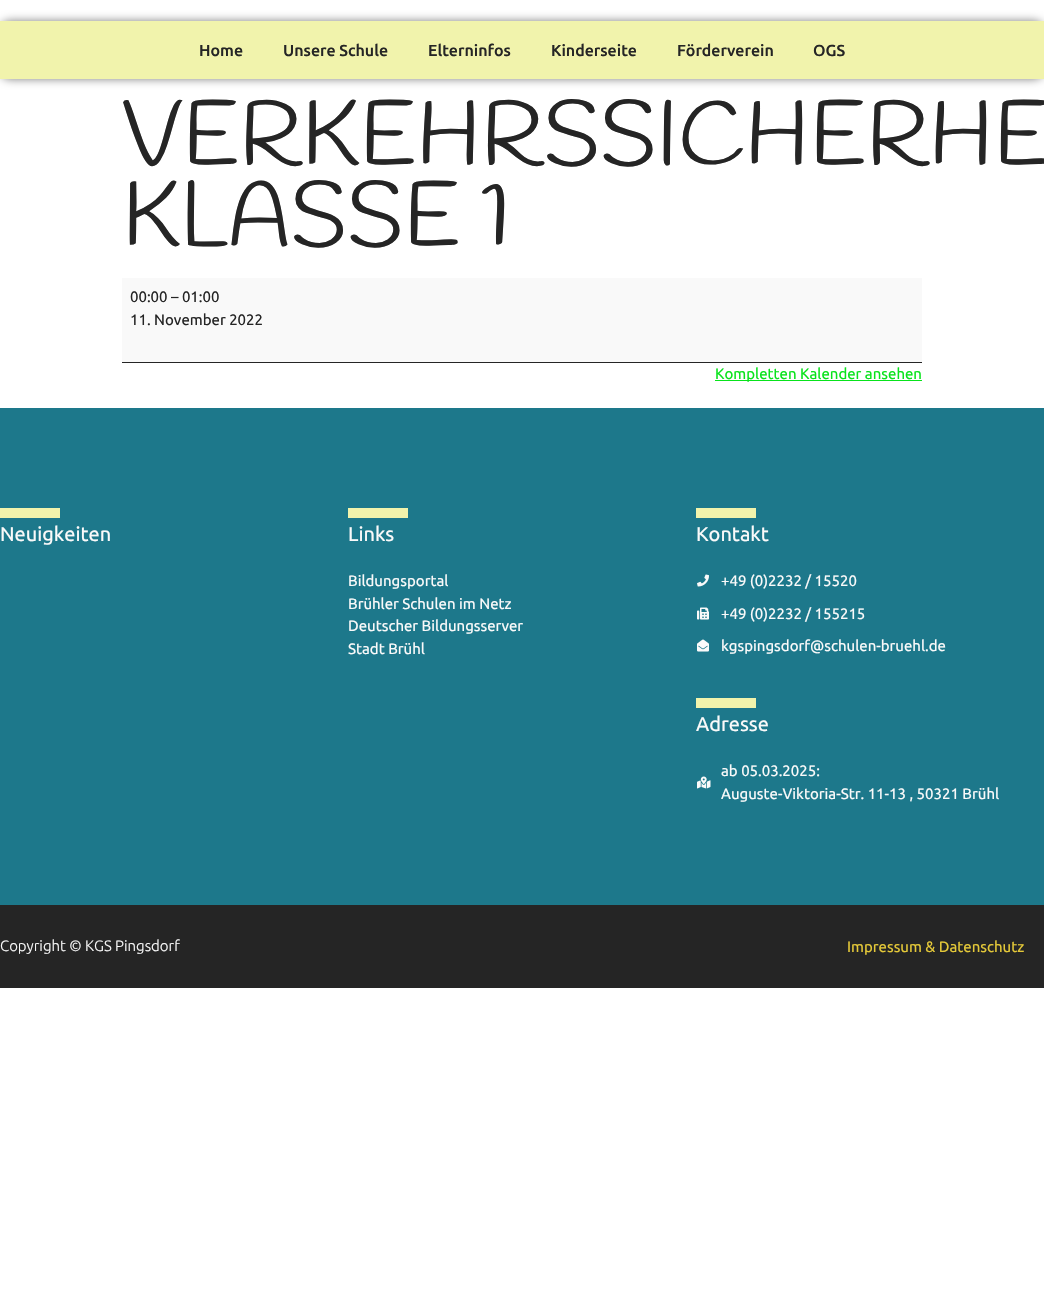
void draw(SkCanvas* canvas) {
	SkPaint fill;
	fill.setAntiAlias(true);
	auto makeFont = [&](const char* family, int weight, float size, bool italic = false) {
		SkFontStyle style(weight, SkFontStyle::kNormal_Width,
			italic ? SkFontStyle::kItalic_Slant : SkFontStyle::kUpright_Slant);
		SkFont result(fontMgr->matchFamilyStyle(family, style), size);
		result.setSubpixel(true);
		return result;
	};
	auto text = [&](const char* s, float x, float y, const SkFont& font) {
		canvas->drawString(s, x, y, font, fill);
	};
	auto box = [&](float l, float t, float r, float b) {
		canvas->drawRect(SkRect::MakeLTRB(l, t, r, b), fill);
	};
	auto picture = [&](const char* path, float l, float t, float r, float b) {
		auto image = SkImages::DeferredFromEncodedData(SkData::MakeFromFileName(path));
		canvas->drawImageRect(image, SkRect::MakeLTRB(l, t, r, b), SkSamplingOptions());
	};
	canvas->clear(0xFFFFFFFF);
	fill.setColor(0x80000000);
	fill.setMaskFilter(SkMaskFilter::MakeBlur(kNormal_SkBlurStyle, 5));
	canvas->drawRoundRect(SkRect::MakeLTRB(0, 21, 1044, 79), 10, 10, fill);
	fill.setMaskFilter(nullptr);
	fill.setColor(0xFFF1F3AC);
	box(0, 21, 1044, 79);
	fill.setColor(0xFFF9F9F9);
	box(122, 278, 922, 362);
	fill.setColor(0xFF252525);
	box(122, 362, 922, 363);
	fill.setColor(0xFF08E31B);
	box(715, 380, 922, 381);
	fill.setColor(0xFF1D788B);
	box(0, 408, 1044, 905);
	fill.setColor(0xFFF1F3AC);
	box(0, 508, 60, 518);
	box(348, 508, 408, 518);
	box(696, 508, 756, 518);
	picture("image0.png", 697, 574, 709, 587);
	picture("image1.png", 697, 607, 709, 620);
	picture("image2.png", 697, 639, 709, 652);
	box(696, 698, 756, 708);
	picture("image3.png", 697, 776, 711, 789);
	fill.setColor(0xFF252525);
	box(0, 905, 1044, 988);
	auto font1 = makeFont("Ubuntu", 500, 16);
	text("Home", 199, 56, font1);
	text("Unsere Schule", 283, 56, font1);
	text("Elterninfos", 428, 56, font1);
	text("Kinderseite", 551, 56, font1);
	text("Förderverein", 677, 56, font1);
	text("OGS", 813, 56, font1);
	auto font2 = makeFont("Handlee", 400, 90);
	text("VERKEHRSSICHERHE", 122, 164, font2);
	text("KLASSE 1", 122, 245, font2);
	auto font3 = makeFont("Ubuntu", 400, 15);
	text("00:00 – 01:00", 130, 302, font3);
	text("11. November 2022", 130, 325, font3);
	fill.setColor(0xFF08E31B);
	text("Kompletten Kalender ansehen", 715, 379, font3);
	auto font4 = makeFont("Ubuntu", 400, 20);
	fill.setColor(0xFFFAFAFA);
	text("Neuigkeiten", 0, 541, font4);
	text("Links", 348, 541, font4);
	text("Bildungsportal", 348, 586, font3);
	text("Brühler Schulen im Netz", 348, 609, font3);
	text("Deutscher Bildungsserver", 348, 631, font3);
	text("Stadt Brühl", 348, 654, font3);
	text("Kontakt", 696, 541, font4);
	text("+49 (0)2232 / 15520", 721, 586, font3);
	text("+49 (0)2232 / 155215", 721, 619, font3);
	text("kgspingsdorf@schulen-bruehl.de", 721, 651, font3);
	text("Adresse", 696, 731, font4);
	text("ab 05.03.2025:", 721, 776, font3);
	text("Auguste-Viktoria-Str. 11-13 , 50321 Brühl", 721, 799, font3);
	auto font5 = makeFont("Ubuntu", 300, 15);
	text("Copyright © KGS Pingsdorf", 0, 951, font5);
	fill.setColor(0xFFE4C838);
	text("Impressum & Datenschutz", 847, 952, font3);
}
